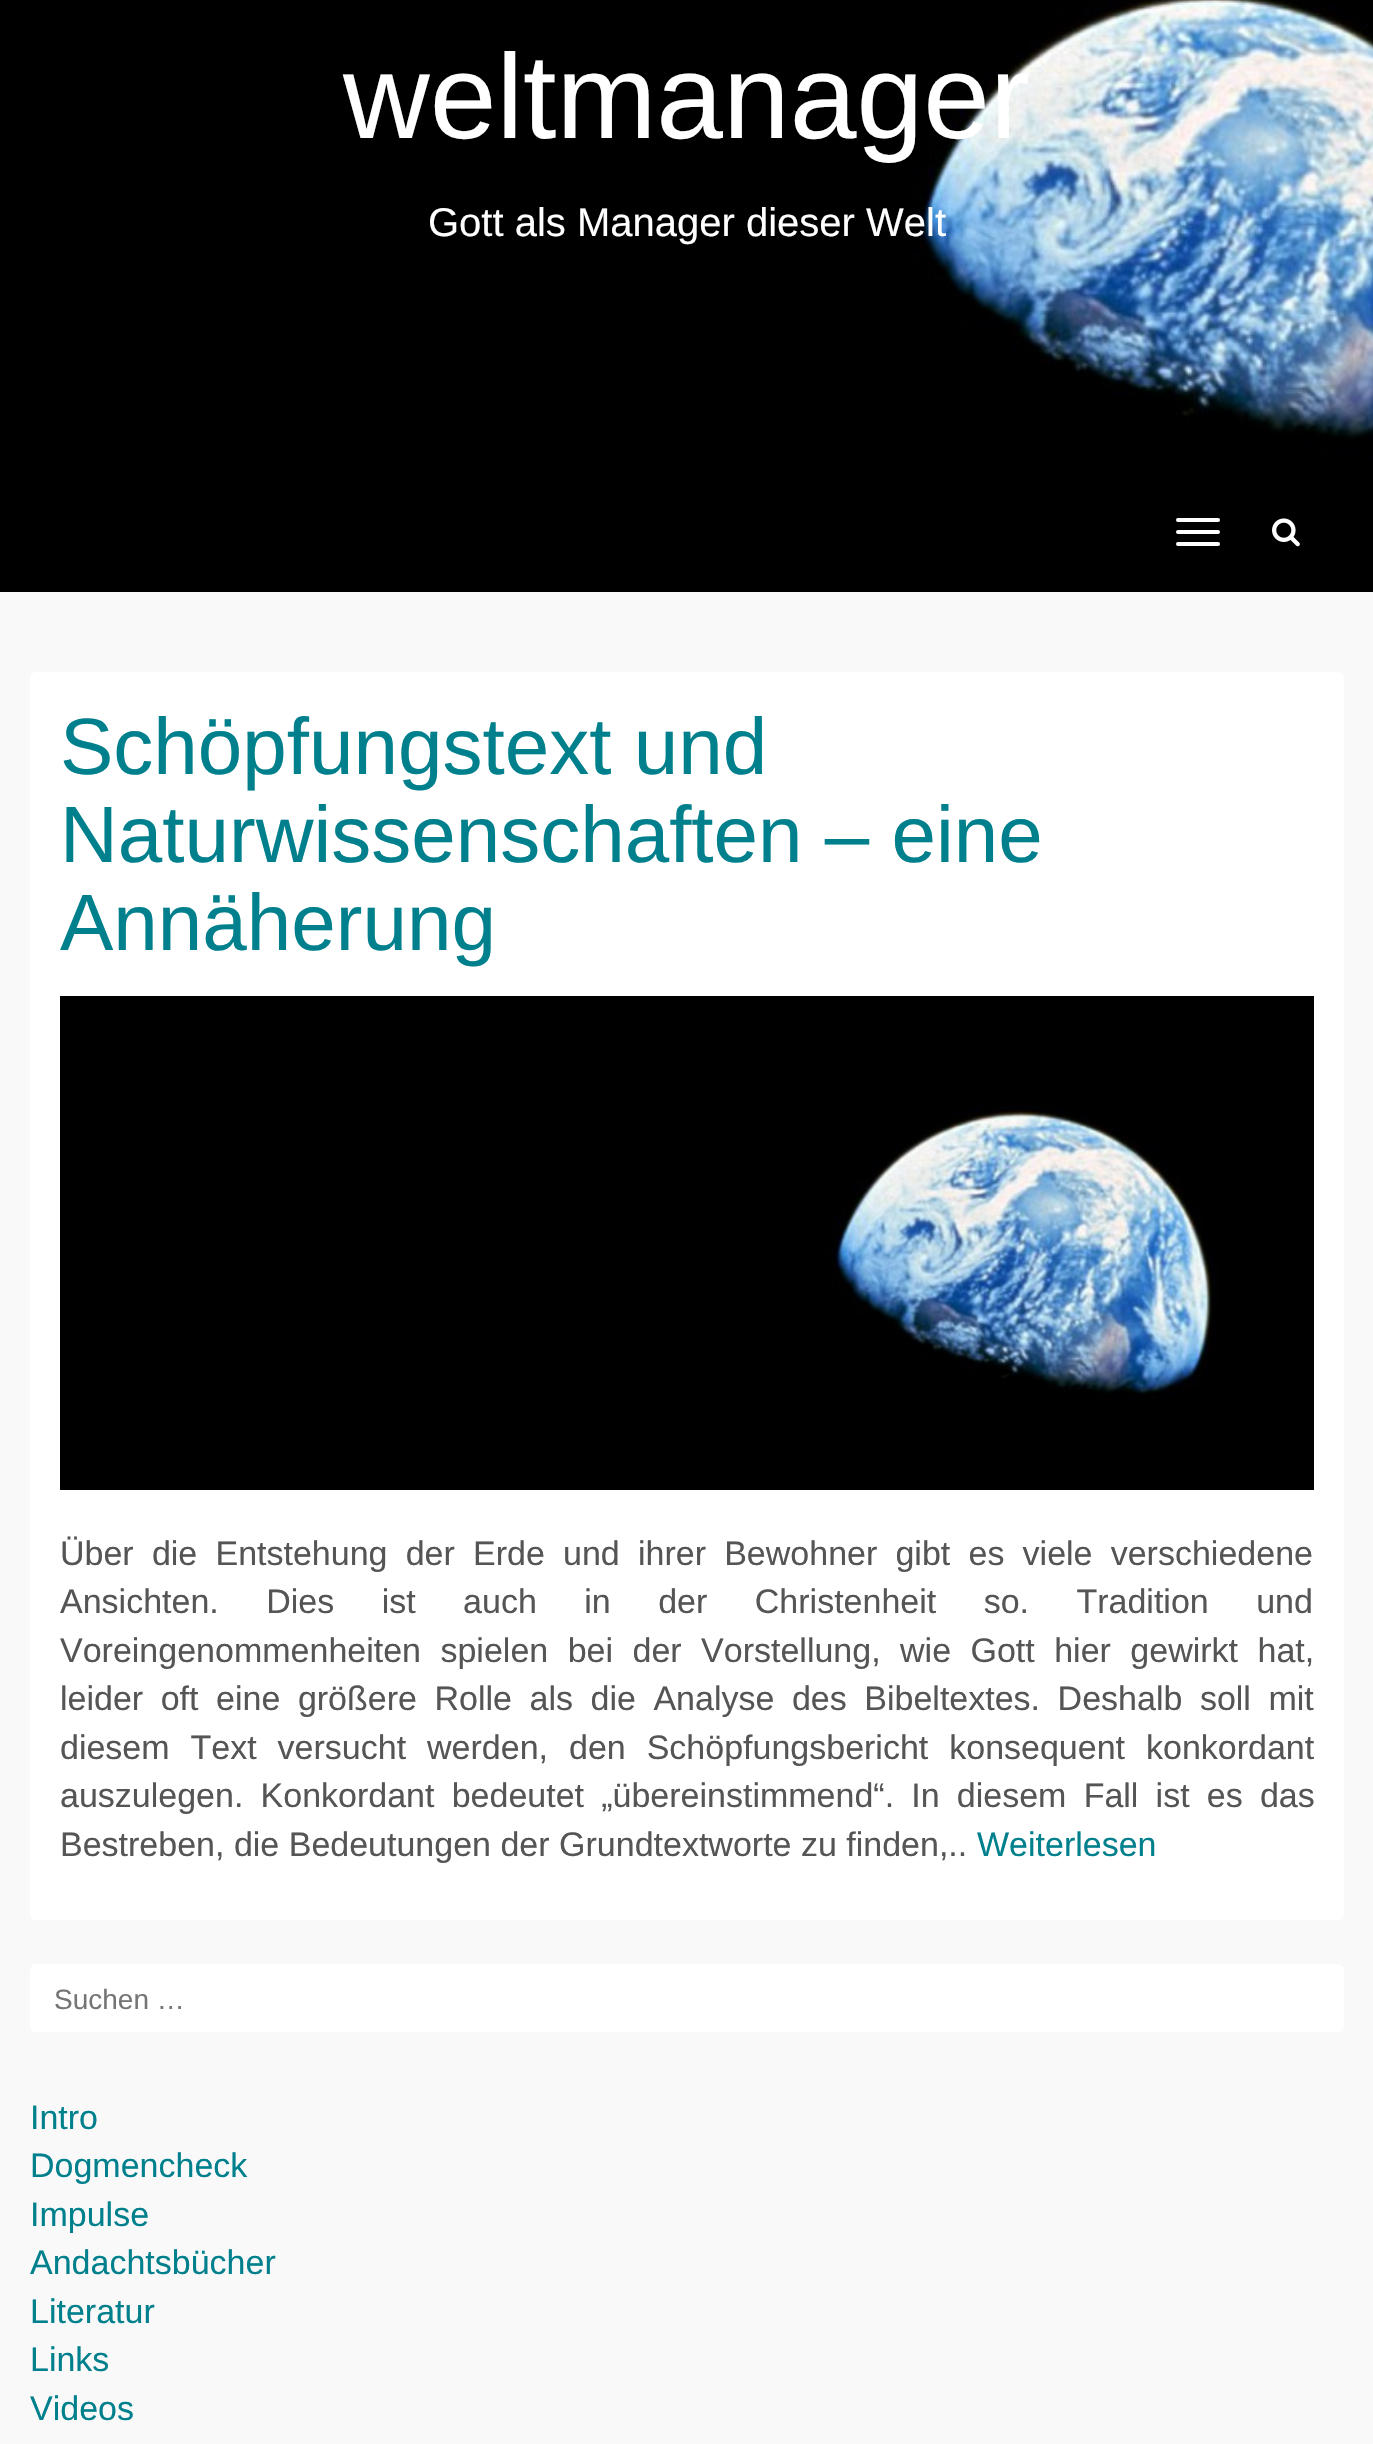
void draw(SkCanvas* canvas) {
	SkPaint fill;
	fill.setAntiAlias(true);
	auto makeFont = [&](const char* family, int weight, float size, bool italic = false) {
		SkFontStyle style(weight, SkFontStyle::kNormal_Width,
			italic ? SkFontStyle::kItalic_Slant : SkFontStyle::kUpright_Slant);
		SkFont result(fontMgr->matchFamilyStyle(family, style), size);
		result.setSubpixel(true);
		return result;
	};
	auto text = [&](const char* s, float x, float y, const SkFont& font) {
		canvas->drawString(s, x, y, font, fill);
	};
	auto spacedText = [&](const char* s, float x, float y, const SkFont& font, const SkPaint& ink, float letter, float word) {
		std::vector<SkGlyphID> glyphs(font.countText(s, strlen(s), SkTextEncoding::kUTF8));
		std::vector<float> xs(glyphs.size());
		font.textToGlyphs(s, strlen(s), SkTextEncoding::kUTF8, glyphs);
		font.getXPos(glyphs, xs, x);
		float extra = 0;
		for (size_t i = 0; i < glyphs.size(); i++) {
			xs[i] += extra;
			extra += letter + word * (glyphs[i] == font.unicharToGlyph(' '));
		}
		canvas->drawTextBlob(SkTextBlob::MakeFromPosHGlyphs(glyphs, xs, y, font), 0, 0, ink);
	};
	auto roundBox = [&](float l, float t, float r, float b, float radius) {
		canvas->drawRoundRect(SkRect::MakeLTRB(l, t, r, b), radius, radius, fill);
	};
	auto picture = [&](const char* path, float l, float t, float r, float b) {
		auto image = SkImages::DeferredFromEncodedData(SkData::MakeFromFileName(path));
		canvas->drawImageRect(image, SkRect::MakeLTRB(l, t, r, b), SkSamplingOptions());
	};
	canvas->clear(0xFFF9F9F9);
	picture("image0.png", 0, 0, 1373, 592);
	fill.setColor(0xFFFFFFFF);
	roundBox(1176, 518, 1220, 522, 2);
	roundBox(1176, 530, 1220, 534, 2);
	roundBox(1176, 542, 1220, 546, 2);
	picture("image1.png", 1272, 518, 1300, 547);
	roundBox(30, 672, 1344, 1920, 6);
	picture("image2.png", 60, 996, 1314, 1490);
	roundBox(30, 1964, 1344, 2032, 6);
	auto font1 = makeFont("Liberation Sans", 400, 120);
	text("weltmanager", 343, 138, font1);
	auto font2 = makeFont("Liberation Sans", 400, 40);
	text("Gott als Manager dieser Welt", 428, 236, font2);
	auto font3 = makeFont("Liberation Sans", 400, 80);
	fill.setColor(0xFF00808C);
	text("Schöpfungstext und", 60, 774, font3);
	text("Naturwissenschaften – eine", 60, 862, font3);
	text("Annäherung", 60, 950, font3);
	auto font4 = makeFont("Liberation Sans", 400, 34);
	fill.setColor(0xFF555555);
	spacedText("Über die Entstehung der Erde und ihrer Bewohner gibt es viele verschiedene", 60, 1565, font4, fill, 0, 8.75f);
	spacedText("Ansichten. Dies ist auch in der Christenheit so. Tradition und", 60, 1613, font4, fill, 0, 38);
	spacedText("Voreingenommenheiten spielen bei der Vorstellung, wie Gott hier gewirkt hat,", 60, 1662, font4, fill, 0, 10);
	spacedText("leider oft eine größere Rolle als die Analyse des Bibeltextes. Deshalb soll mit", 60, 1710, font4, fill, 0, 8.1f);
	spacedText("diesem Text versucht werden, den Schöpfungsbericht konsequent konkordant", 60, 1759, font4, fill, 0, 11.5f);
	spacedText("auszulegen. Konkordant bedeutet „übereinstimmend“. In diesem Fall ist es das", 60, 1807, font4, fill, 0, 7.75f);
	text("Bestreben, die Bedeutungen der Grundtextworte zu finden,..", 60, 1856, font4);
	fill.setColor(0xFF00808C);
	text("Weiterlesen", 977, 1856, font4);
	auto font5 = makeFont("Liberation Sans", 400, 28);
	fill.setColor(0xFF757575);
	text("Suchen …", 54, 2009, font5);
	fill.setColor(0xFF00808C);
	text("Intro", 30, 2129, font4);
	text("Dogmencheck", 30, 2177, font4);
	text("Impulse", 30, 2226, font4);
	text("Andachtsbücher", 30, 2274, font4);
	text("Literatur", 30, 2323, font4);
	text("Links", 30, 2371, font4);
	text("Videos", 30, 2420, font4);
}
